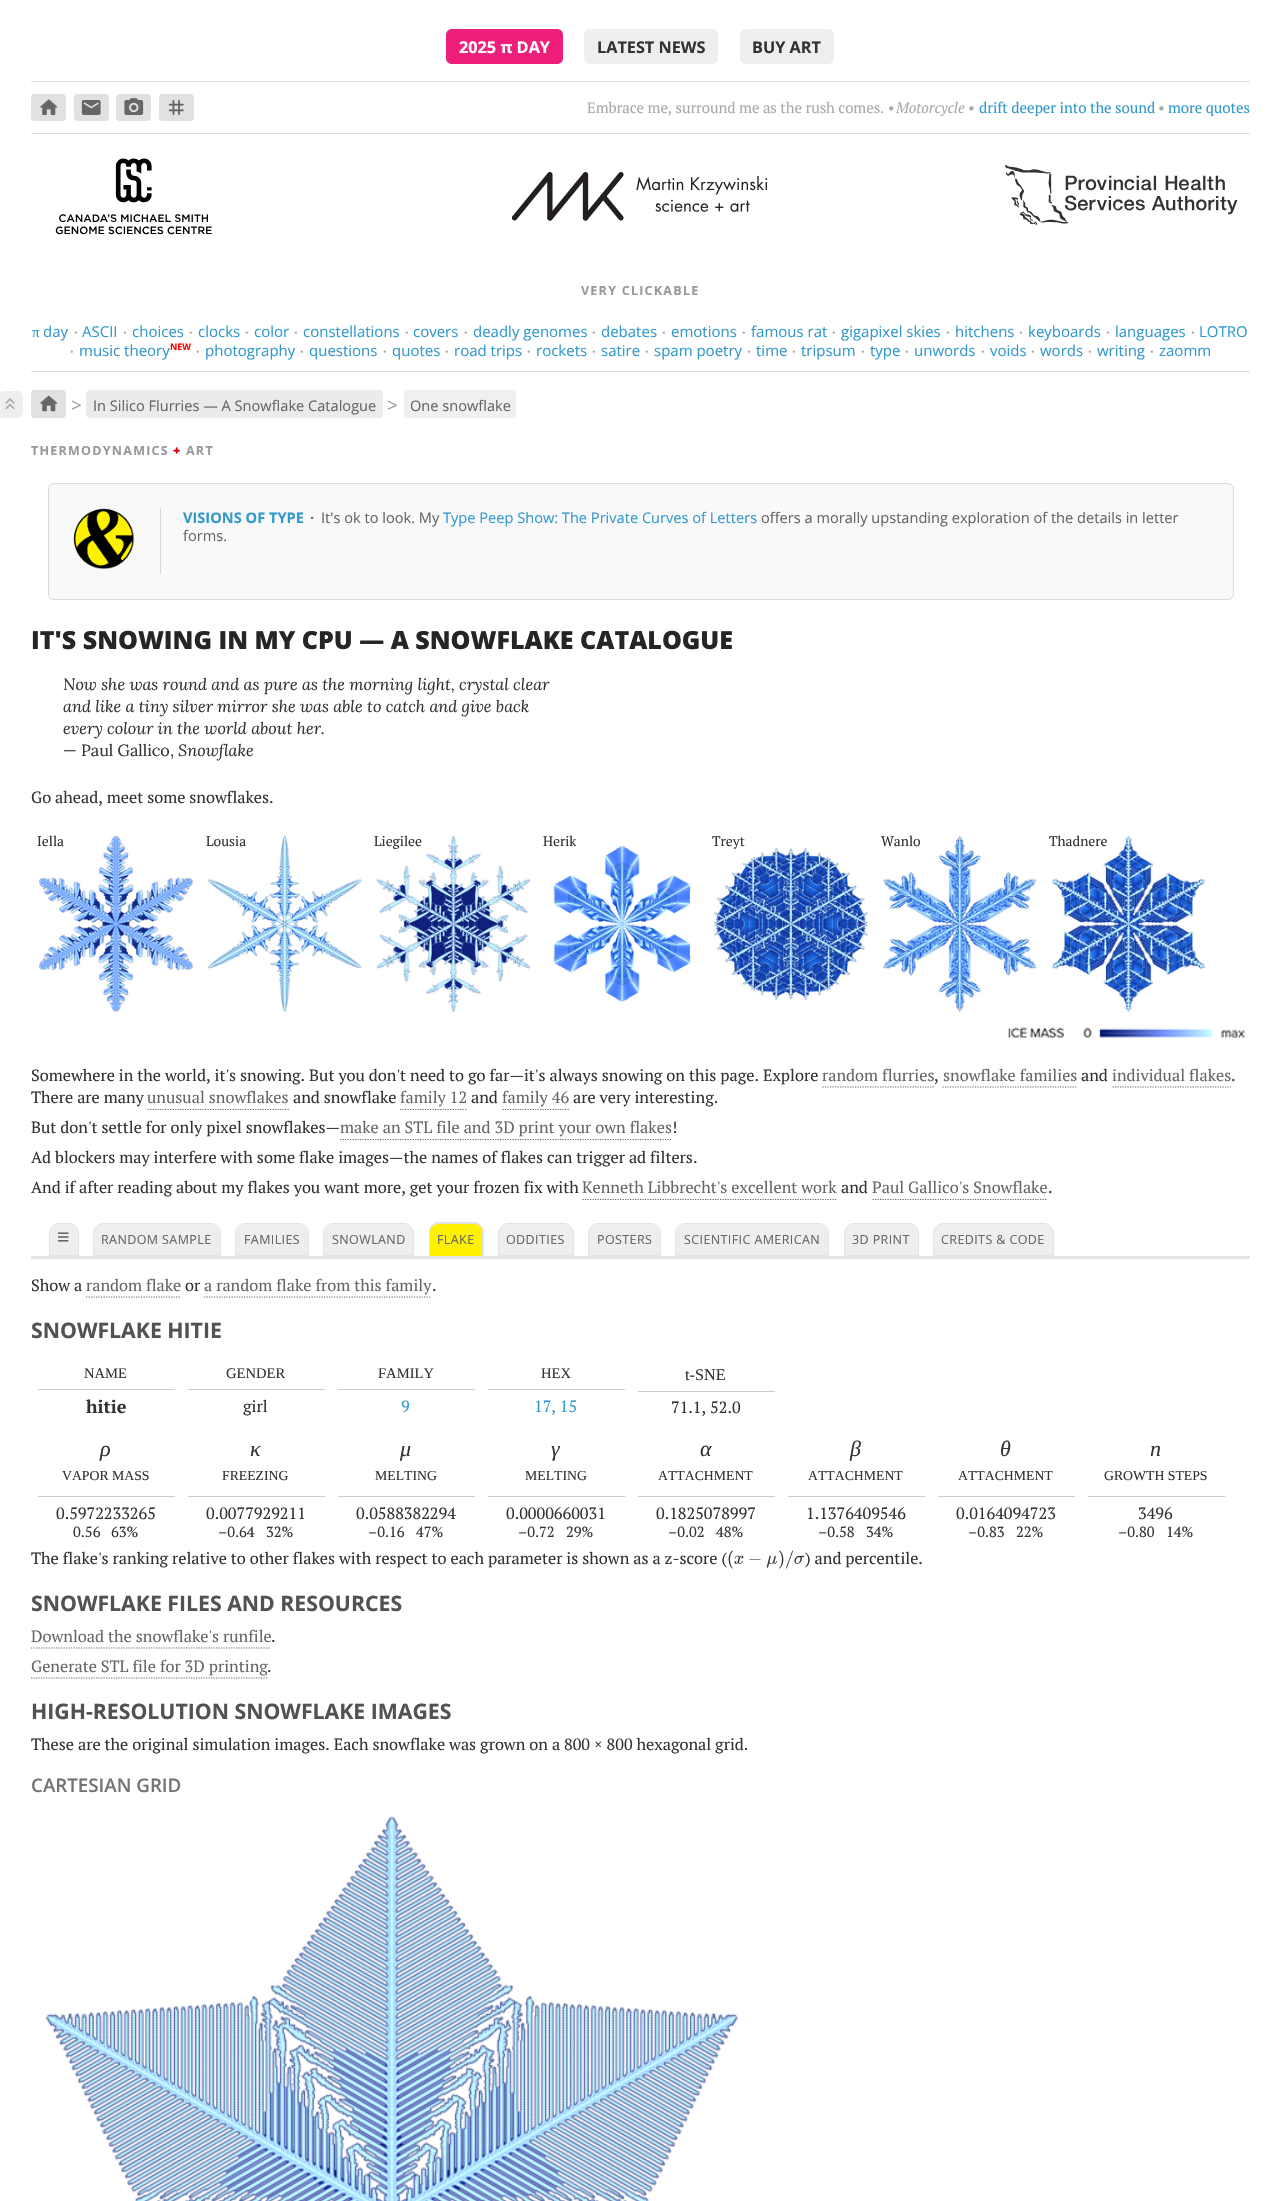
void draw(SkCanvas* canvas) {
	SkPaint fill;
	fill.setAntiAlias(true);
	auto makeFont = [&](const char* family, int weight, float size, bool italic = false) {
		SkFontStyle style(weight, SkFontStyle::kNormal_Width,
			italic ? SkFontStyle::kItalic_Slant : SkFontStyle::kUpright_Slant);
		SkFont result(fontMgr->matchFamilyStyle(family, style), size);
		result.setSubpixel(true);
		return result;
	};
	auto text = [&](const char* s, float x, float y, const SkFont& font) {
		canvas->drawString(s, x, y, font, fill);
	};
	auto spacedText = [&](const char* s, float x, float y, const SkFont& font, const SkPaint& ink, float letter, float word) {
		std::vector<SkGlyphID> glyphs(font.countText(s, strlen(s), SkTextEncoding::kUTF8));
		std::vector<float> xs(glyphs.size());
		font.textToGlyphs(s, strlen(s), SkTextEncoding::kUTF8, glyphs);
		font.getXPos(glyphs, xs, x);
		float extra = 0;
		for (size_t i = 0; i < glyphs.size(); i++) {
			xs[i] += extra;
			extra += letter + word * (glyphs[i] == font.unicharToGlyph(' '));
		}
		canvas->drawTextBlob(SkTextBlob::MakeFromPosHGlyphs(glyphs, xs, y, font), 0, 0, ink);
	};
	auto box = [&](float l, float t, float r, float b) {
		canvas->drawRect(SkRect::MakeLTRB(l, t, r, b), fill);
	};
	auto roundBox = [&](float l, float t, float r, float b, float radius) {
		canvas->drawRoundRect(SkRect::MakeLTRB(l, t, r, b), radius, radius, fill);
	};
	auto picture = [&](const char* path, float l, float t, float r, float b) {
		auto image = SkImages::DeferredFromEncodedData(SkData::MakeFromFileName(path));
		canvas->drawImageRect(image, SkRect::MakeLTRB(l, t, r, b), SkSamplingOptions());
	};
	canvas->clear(0xFFFFFFFF);
	fill.setColor(0xFFDDDDDD);
	box(31, 81, 1250, 82);
	fill.setColor(0xFFEE1F7A);
	canvas->drawPath(SkPathBuilder().moveTo(452, 29).lineTo(500, 29).lineTo(500, 64).lineTo(452, 64).cubicTo(448.5f, 64, 446, 61.5f, 446, 58).lineTo(446, 35).cubicTo(446, 31.5f, 448.5f, 29, 452, 29).close().detach(), fill);
	box(500, 29, 513, 64);
	canvas->drawPath(SkPathBuilder().moveTo(513, 29).lineTo(557, 29).cubicTo(560.5f, 29, 563, 31.5f, 563, 35).lineTo(563, 58).cubicTo(563, 61.5f, 560.5f, 64, 557, 64).lineTo(513, 64).close().detach(), fill);
	fill.setColor(0xFFEEEEEE);
	roundBox(584, 29, 718, 64, 6);
	roundBox(740, 29, 834, 64, 6);
	fill.setColor(0xFFDDDDDD);
	box(31, 133, 1250, 134);
	fill.setColor(0xFFE1E1E1);
	roundBox(31, 94, 66, 121, 4);
	picture("image0.png", 40, 99, 58, 115);
	roundBox(74, 94, 109, 121, 4);
	picture("image1.png", 81, 100, 101, 115);
	roundBox(116, 94, 151, 121, 4);
	picture("image2.png", 124, 98, 144, 115);
	roundBox(159, 94, 194, 121, 4);
	picture("image3.png", 168, 100, 184, 115);
	picture("image4.png", 55, 158, 212, 235);
	picture("image5.png", 511, 172, 768, 221);
	picture("image6.png", 1005, 165, 1238, 225);
	fill.setColor(0xFFDDDDDD);
	box(31, 371, 1250, 372);
	fill.setColor(0xFFEEEEEE);
	roundBox(-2, 391, 23, 418, 6);
	picture("image7.png", 5, 398, 15, 410);
	fill.setColor(0xFFE1E1E1);
	roundBox(31, 390, 66, 418, 4);
	picture("image8.png", 40, 395, 58, 412);
	fill.setColor(0xFFEBEBEB);
	roundBox(86, 390, 383, 418, 4);
	fill.setColor(0xFFF0F0F0);
	roundBox(404, 390, 516, 418, 4);
	fill.setColor(0xFFF9F9F9);
	canvas->drawRoundRect(SkRect::MakeLTRB(48.5f, 483.5f, 1233.5f, 599.5f), 5.5f, 5.5f, fill);
	fill.setStyle(SkPaint::kStroke_Style);
	fill.setStrokeWidth(1);
	fill.setColor(0xFFDADADA);
	canvas->drawRoundRect(SkRect::MakeLTRB(48.5f, 483.5f, 1233.5f, 599.5f), 5.5f, 5.5f, fill);
	picture("image9.png", 73, 508, 135, 570);
	fill.setStyle(SkPaint::kFill_Style);
	box(160, 508, 161, 574);
	picture("image10.png", 39, 835, 193, 1012);
	picture("image11.png", 208, 835, 362, 1012);
	picture("image12.png", 376, 835, 531, 1012);
	picture("image13.png", 553, 845, 691, 1002);
	picture("image14.png", 714, 847, 868, 1001);
	picture("image15.png", 883, 835, 1037, 1012);
	picture("image16.png", 1051, 835, 1206, 1012);
	picture("image17.png", 1008, 1027, 1246, 1039);
	fill.setStyle(SkPaint::kStroke_Style);
	fill.setStrokeWidth(1.2f);
	fill.setColor(0xFF696969);
	fill.setPathEffect(SkDashPathEffect::Make({{1.25f, 1.25f}}, 0));
	canvas->drawPath(SkPathBuilder().moveTo(822.5f, 1087).lineTo(934, 1087).detach(), fill);
	fill.setPathEffect(nullptr);
	fill.setPathEffect(SkDashPathEffect::Make({{1.25f, 1.25f}}, 0));
	canvas->drawPath(SkPathBuilder().moveTo(942.5f, 1087).lineTo(1077.5f, 1087).detach(), fill);
	fill.setPathEffect(nullptr);
	fill.setPathEffect(SkDashPathEffect::Make({{1.25f, 1.25f}}, 0));
	canvas->drawPath(SkPathBuilder().moveTo(1112.5f, 1087).lineTo(1231, 1087).detach(), fill);
	fill.setPathEffect(nullptr);
	fill.setPathEffect(SkDashPathEffect::Make({{1.25f, 1.25f}}, 0));
	canvas->drawPath(SkPathBuilder().moveTo(147.5f, 1109.5f).lineTo(289, 1109.5f).detach(), fill);
	fill.setPathEffect(nullptr);
	fill.setPathEffect(SkDashPathEffect::Make({{1.25f, 1.25f}}, 0));
	canvas->drawPath(SkPathBuilder().moveTo(400, 1109.5f).lineTo(467.5f, 1109.5f).detach(), fill);
	fill.setPathEffect(nullptr);
	fill.setPathEffect(SkDashPathEffect::Make({{1.25f, 1.25f}}, 0));
	canvas->drawPath(SkPathBuilder().moveTo(502.5f, 1109.5f).lineTo(569, 1109.5f).detach(), fill);
	fill.setPathEffect(nullptr);
	fill.setPathEffect(SkDashPathEffect::Make({{1.25f, 1.25f}}, 0));
	canvas->drawPath(SkPathBuilder().moveTo(340, 1139.5f).lineTo(671, 1139.5f).detach(), fill);
	fill.setPathEffect(nullptr);
	fill.setPathEffect(SkDashPathEffect::Make({{1.25f, 1.25f}}, 0));
	canvas->drawPath(SkPathBuilder().moveTo(582.5f, 1199.5f).lineTo(837.5f, 1199.5f).detach(), fill);
	fill.setPathEffect(nullptr);
	fill.setPathEffect(SkDashPathEffect::Make({{1.25f, 1.25f}}, 0));
	canvas->drawPath(SkPathBuilder().moveTo(872.5f, 1199.5f).lineTo(1047.5f, 1199.5f).detach(), fill);
	fill.setPathEffect(nullptr);
	fill.setStyle(SkPaint::kFill_Style);
	fill.setColor(0xFFFFF200);
	canvas->drawPath(SkPathBuilder().moveTo(439, 1223).lineTo(474, 1223).cubicTo(479.5f, 1223, 484, 1227.5f, 484, 1233).lineTo(484, 1258).lineTo(429, 1258).lineTo(429, 1233).cubicTo(429, 1227.5f, 433.5f, 1223, 439, 1223).close().detach(), fill);
	fill.setColor(0xFFE3E3E3);
	canvas->drawPath(SkPathBuilder(SkPathFillType::kEvenOdd).moveTo(439, 1222).lineTo(474, 1222).cubicTo(479, 1222, 484, 1227, 484, 1232).lineTo(484, 1258).lineTo(429, 1258).lineTo(429, 1232).cubicTo(429, 1227, 433, 1222, 439, 1222).close().moveTo(439, 1224).lineTo(474, 1224).cubicTo(479, 1224, 482, 1228, 482, 1232).lineTo(482, 1258).lineTo(430, 1258).lineTo(430, 1232).cubicTo(430, 1228, 434, 1224, 439, 1224).close().detach(), fill);
	box(31, 1256, 1250, 1259);
	fill.setColor(0xFFEEEEEE);
	canvas->drawPath(SkPathBuilder().moveTo(59, 1223.5f).lineTo(69, 1223.5f).cubicTo(74, 1223.5f, 78.5f, 1228, 78.5f, 1233).lineTo(78.5f, 1255.5f).lineTo(49.5f, 1255.5f).lineTo(49.5f, 1233).cubicTo(49.5f, 1228, 54, 1223.5f, 59, 1223.5f).close().detach(), fill);
	fill.setStyle(SkPaint::kStroke_Style);
	fill.setStrokeWidth(1);
	fill.setColor(0xFFE3E3E3);
	canvas->drawPath(SkPathBuilder().moveTo(59, 1223.5f).lineTo(69, 1223.5f).cubicTo(74, 1223.5f, 78.5f, 1228, 78.5f, 1233).lineTo(78.5f, 1255.5f).lineTo(49.5f, 1255.5f).lineTo(49.5f, 1233).cubicTo(49.5f, 1228, 54, 1223.5f, 59, 1223.5f).close().detach(), fill);
	fill.setStyle(SkPaint::kFill_Style);
	fill.setColor(0xFFEEEEEE);
	canvas->drawPath(SkPathBuilder().moveTo(103, 1223.5f).lineTo(211, 1223.5f).cubicTo(216, 1223.5f, 220.5f, 1228, 220.5f, 1233).lineTo(220.5f, 1255.5f).lineTo(93.5f, 1255.5f).lineTo(93.5f, 1233).cubicTo(93.5f, 1228, 98, 1223.5f, 103, 1223.5f).close().detach(), fill);
	fill.setStyle(SkPaint::kStroke_Style);
	fill.setColor(0xFFE3E3E3);
	canvas->drawPath(SkPathBuilder().moveTo(103, 1223.5f).lineTo(211, 1223.5f).cubicTo(216, 1223.5f, 220.5f, 1228, 220.5f, 1233).lineTo(220.5f, 1255.5f).lineTo(93.5f, 1255.5f).lineTo(93.5f, 1233).cubicTo(93.5f, 1228, 98, 1223.5f, 103, 1223.5f).close().detach(), fill);
	fill.setStyle(SkPaint::kFill_Style);
	fill.setColor(0xFFEEEEEE);
	canvas->drawPath(SkPathBuilder().moveTo(245, 1223.5f).lineTo(299, 1223.5f).cubicTo(304, 1223.5f, 308.5f, 1228, 308.5f, 1233).lineTo(308.5f, 1255.5f).lineTo(235.5f, 1255.5f).lineTo(235.5f, 1233).cubicTo(235.5f, 1228, 240, 1223.5f, 245, 1223.5f).close().detach(), fill);
	fill.setStyle(SkPaint::kStroke_Style);
	fill.setColor(0xFFE3E3E3);
	canvas->drawPath(SkPathBuilder().moveTo(245, 1223.5f).lineTo(299, 1223.5f).cubicTo(304, 1223.5f, 308.5f, 1228, 308.5f, 1233).lineTo(308.5f, 1255.5f).lineTo(235.5f, 1255.5f).lineTo(235.5f, 1233).cubicTo(235.5f, 1228, 240, 1223.5f, 245, 1223.5f).close().detach(), fill);
	fill.setStyle(SkPaint::kFill_Style);
	fill.setColor(0xFFEEEEEE);
	canvas->drawPath(SkPathBuilder().moveTo(333, 1223.5f).lineTo(404, 1223.5f).cubicTo(409, 1223.5f, 413.5f, 1228, 413.5f, 1233).lineTo(413.5f, 1255.5f).lineTo(323.5f, 1255.5f).lineTo(323.5f, 1233).cubicTo(323.5f, 1228, 328, 1223.5f, 333, 1223.5f).close().detach(), fill);
	fill.setStyle(SkPaint::kStroke_Style);
	fill.setColor(0xFFE3E3E3);
	canvas->drawPath(SkPathBuilder().moveTo(333, 1223.5f).lineTo(404, 1223.5f).cubicTo(409, 1223.5f, 413.5f, 1228, 413.5f, 1233).lineTo(413.5f, 1255.5f).lineTo(323.5f, 1255.5f).lineTo(323.5f, 1233).cubicTo(323.5f, 1228, 328, 1223.5f, 333, 1223.5f).close().detach(), fill);
	fill.setStyle(SkPaint::kFill_Style);
	fill.setColor(0xFFEEEEEE);
	canvas->drawPath(SkPathBuilder().moveTo(508, 1223.5f).lineTo(564, 1223.5f).cubicTo(569, 1223.5f, 573.5f, 1228, 573.5f, 1233).lineTo(573.5f, 1255.5f).lineTo(498.5f, 1255.5f).lineTo(498.5f, 1233).cubicTo(498.5f, 1228, 503, 1223.5f, 508, 1223.5f).close().detach(), fill);
	fill.setStyle(SkPaint::kStroke_Style);
	fill.setColor(0xFFE3E3E3);
	canvas->drawPath(SkPathBuilder().moveTo(508, 1223.5f).lineTo(564, 1223.5f).cubicTo(569, 1223.5f, 573.5f, 1228, 573.5f, 1233).lineTo(573.5f, 1255.5f).lineTo(498.5f, 1255.5f).lineTo(498.5f, 1233).cubicTo(498.5f, 1228, 503, 1223.5f, 508, 1223.5f).close().detach(), fill);
	fill.setStyle(SkPaint::kFill_Style);
	fill.setColor(0xFFEEEEEE);
	canvas->drawPath(SkPathBuilder().moveTo(598, 1223.5f).lineTo(651, 1223.5f).cubicTo(656, 1223.5f, 660.5f, 1228, 660.5f, 1233).lineTo(660.5f, 1255.5f).lineTo(588.5f, 1255.5f).lineTo(588.5f, 1233).cubicTo(588.5f, 1228, 593, 1223.5f, 598, 1223.5f).close().detach(), fill);
	fill.setStyle(SkPaint::kStroke_Style);
	fill.setColor(0xFFE3E3E3);
	canvas->drawPath(SkPathBuilder().moveTo(598, 1223.5f).lineTo(651, 1223.5f).cubicTo(656, 1223.5f, 660.5f, 1228, 660.5f, 1233).lineTo(660.5f, 1255.5f).lineTo(588.5f, 1255.5f).lineTo(588.5f, 1233).cubicTo(588.5f, 1228, 593, 1223.5f, 598, 1223.5f).close().detach(), fill);
	fill.setStyle(SkPaint::kFill_Style);
	fill.setColor(0xFFEEEEEE);
	canvas->drawPath(SkPathBuilder().moveTo(685, 1223.5f).lineTo(819, 1223.5f).cubicTo(824, 1223.5f, 828.5f, 1228, 828.5f, 1233).lineTo(828.5f, 1255.5f).lineTo(675.5f, 1255.5f).lineTo(675.5f, 1233).cubicTo(675.5f, 1228, 680, 1223.5f, 685, 1223.5f).close().detach(), fill);
	fill.setStyle(SkPaint::kStroke_Style);
	fill.setColor(0xFFE3E3E3);
	canvas->drawPath(SkPathBuilder().moveTo(685, 1223.5f).lineTo(819, 1223.5f).cubicTo(824, 1223.5f, 828.5f, 1228, 828.5f, 1233).lineTo(828.5f, 1255.5f).lineTo(675.5f, 1255.5f).lineTo(675.5f, 1233).cubicTo(675.5f, 1228, 680, 1223.5f, 685, 1223.5f).close().detach(), fill);
	fill.setStyle(SkPaint::kFill_Style);
	fill.setColor(0xFFEEEEEE);
	canvas->drawPath(SkPathBuilder().moveTo(854, 1223.5f).lineTo(909, 1223.5f).cubicTo(914, 1223.5f, 918.5f, 1228, 918.5f, 1233).lineTo(918.5f, 1255.5f).lineTo(844.5f, 1255.5f).lineTo(844.5f, 1233).cubicTo(844.5f, 1228, 849, 1223.5f, 854, 1223.5f).close().detach(), fill);
	fill.setStyle(SkPaint::kStroke_Style);
	fill.setColor(0xFFE3E3E3);
	canvas->drawPath(SkPathBuilder().moveTo(854, 1223.5f).lineTo(909, 1223.5f).cubicTo(914, 1223.5f, 918.5f, 1228, 918.5f, 1233).lineTo(918.5f, 1255.5f).lineTo(844.5f, 1255.5f).lineTo(844.5f, 1233).cubicTo(844.5f, 1228, 849, 1223.5f, 854, 1223.5f).close().detach(), fill);
	fill.setStyle(SkPaint::kFill_Style);
	fill.setColor(0xFFEEEEEE);
	canvas->drawPath(SkPathBuilder().moveTo(943, 1223.5f).lineTo(1044, 1223.5f).cubicTo(1049, 1223.5f, 1053.5f, 1228, 1053.5f, 1233).lineTo(1053.5f, 1255.5f).lineTo(933.5f, 1255.5f).lineTo(933.5f, 1233).cubicTo(933.5f, 1228, 938, 1223.5f, 943, 1223.5f).close().detach(), fill);
	fill.setStyle(SkPaint::kStroke_Style);
	fill.setColor(0xFFE3E3E3);
	canvas->drawPath(SkPathBuilder().moveTo(943, 1223.5f).lineTo(1044, 1223.5f).cubicTo(1049, 1223.5f, 1053.5f, 1228, 1053.5f, 1233).lineTo(1053.5f, 1255.5f).lineTo(933.5f, 1255.5f).lineTo(933.5f, 1233).cubicTo(933.5f, 1228, 938, 1223.5f, 943, 1223.5f).close().detach(), fill);
	fill.setStrokeWidth(1.2f);
	fill.setColor(0xFF696969);
	fill.setPathEffect(SkDashPathEffect::Make({{1.25f, 1.25f}}, 0));
	canvas->drawPath(SkPathBuilder().moveTo(86, 1297).lineTo(181, 1297).detach(), fill);
	fill.setPathEffect(nullptr);
	fill.setPathEffect(SkDashPathEffect::Make({{1.25f, 1.25f}}, 0));
	canvas->drawPath(SkPathBuilder().moveTo(204, 1297).lineTo(431, 1297).detach(), fill);
	fill.setPathEffect(nullptr);
	fill.setStyle(SkPaint::kFill_Style);
	fill.setColor(0xFFCCCCCC);
	box(38, 1389, 175, 1390);
	box(188, 1389, 325, 1390);
	box(338, 1389, 475, 1390);
	box(488, 1389, 625, 1390);
	box(638, 1391, 775, 1392);
	box(38, 1496, 175, 1497);
	box(188, 1496, 325, 1497);
	box(338, 1496, 475, 1497);
	box(488, 1496, 625, 1497);
	box(638, 1496, 775, 1497);
	box(788, 1496, 925, 1497);
	box(938, 1496, 1075, 1497);
	box(1088, 1496, 1225, 1497);
	picture("image18.png", 734, 1555, 744, 1564);
	picture("image19.png", 766, 1555, 777, 1568);
	fill.setStyle(SkPaint::kStroke_Style);
	fill.setColor(0xFF696969);
	fill.setPathEffect(SkDashPathEffect::Make({{1.25f, 1.25f}}, 0));
	canvas->drawPath(SkPathBuilder().moveTo(31, 1648).lineTo(271, 1648).detach(), fill);
	fill.setPathEffect(nullptr);
	fill.setPathEffect(SkDashPathEffect::Make({{1.25f, 1.25f}}, 0));
	canvas->drawPath(SkPathBuilder().moveTo(31, 1678).lineTo(267.5f, 1678).detach(), fill);
	fill.setPathEffect(nullptr);
	picture("image21.png", 46, 1816, 738, 2201);
	auto font1 = makeFont("Open Sans", 700, 16.25f);
	fill.setStyle(SkPaint::kFill_Style);
	fill.setColor(0xFFFFFFFF);
	text("2025 π DAY", 459, 53, font1);
	fill.setColor(0xFF333333);
	text("LATEST NEWS", 597, 53, font1);
	text("BUY ART", 752, 53, font1);
	auto font2 = makeFont("PT Serif", 400, 15);
	fill.setColor(0xFFAAAAAA);
	spacedText("Embrace me, surround me as the rush comes. •", 587, 113, font2, fill, -0.1f, 0);
	auto font3 = makeFont("PT Serif", 400, 15, true);
	spacedText("Motorcycle", 896, 113, font3, fill, -0.1f, 0);
	spacedText("•", 968, 113, font2, fill, -0.1f, 0);
	fill.setColor(0xFF3399CC);
	spacedText("drift deeper into the sound", 979, 113, font2, fill, -0.1f, 0);
	fill.setColor(0xFFAAAAAA);
	spacedText("•", 1158, 113, font2, fill, -0.1f, 0);
	fill.setColor(0xFF3399CC);
	spacedText("more quotes", 1168, 113, font2, fill, -0.1f, 0);
	auto font4 = makeFont("Open Sans", 700, 12.5f);
	fill.setColor(0xFF999999);
	spacedText("VERY CLICKABLE", 581, 295, font4, fill, 1.25f, 0);
	auto font5 = makeFont("Liberation Serif", 400, 15);
	fill.setColor(0xFF3399CC);
	text("π", 32, 337, font5);
	auto font6 = makeFont("Open Sans", 400, 15);
	text("day", 43, 337, font6);
	fill.setColor(0xFFAAAAAA);
	text("·", 74, 337, font4);
	fill.setColor(0xFF3399CC);
	text("ASCII", 82, 337, font6);
	fill.setColor(0xFFAAAAAA);
	text("·", 123, 337, font4);
	fill.setColor(0xFF3399CC);
	text("choices", 132, 337, font6);
	fill.setColor(0xFFAAAAAA);
	text("·", 189, 337, font4);
	fill.setColor(0xFF3399CC);
	text("clocks", 198, 337, font6);
	fill.setColor(0xFFAAAAAA);
	text("·", 245, 337, font4);
	fill.setColor(0xFF3399CC);
	text("color", 254, 337, font6);
	fill.setColor(0xFFAAAAAA);
	text("·", 294, 337, font4);
	fill.setColor(0xFF3399CC);
	text("constellations", 303, 337, font6);
	fill.setColor(0xFFAAAAAA);
	text("·", 405, 337, font4);
	fill.setColor(0xFF3399CC);
	text("covers", 413, 337, font6);
	fill.setColor(0xFFAAAAAA);
	text("·", 464, 337, font4);
	fill.setColor(0xFF3399CC);
	text("deadly genomes", 473, 337, font6);
	fill.setColor(0xFFAAAAAA);
	text("·", 592, 337, font4);
	fill.setColor(0xFF3399CC);
	text("debates", 601, 337, font6);
	fill.setColor(0xFFAAAAAA);
	text("·", 662, 337, font4);
	fill.setColor(0xFF3399CC);
	text("emotions", 671, 337, font6);
	fill.setColor(0xFFAAAAAA);
	text("·", 742, 337, font4);
	fill.setColor(0xFF3399CC);
	text("famous rat", 751, 337, font6);
	fill.setColor(0xFFAAAAAA);
	text("·", 832, 337, font4);
	fill.setColor(0xFF3399CC);
	text("gigapixel skies", 841, 337, font6);
	fill.setColor(0xFFAAAAAA);
	text("·", 946, 337, font4);
	fill.setColor(0xFF3399CC);
	text("hitchens", 955, 337, font6);
	fill.setColor(0xFFAAAAAA);
	text("·", 1019, 337, font4);
	fill.setColor(0xFF3399CC);
	text("keyboards", 1028, 337, font6);
	fill.setColor(0xFFAAAAAA);
	text("·", 1106, 337, font4);
	fill.setColor(0xFF3399CC);
	text("languages", 1115, 337, font6);
	fill.setColor(0xFFAAAAAA);
	text("·", 1191, 337, font4);
	fill.setColor(0xFF3399CC);
	text("LOTRO", 1199, 337, font6);
	fill.setColor(0xFFAAAAAA);
	text("·", 70, 356, font4);
	fill.setColor(0xFF3399CC);
	text("music theory", 79, 356, font6);
	auto font7 = makeFont("Open Sans", 700, 9);
	fill.setColor(0xFFFF0000);
	text("NEW", 170, 350, font7);
	fill.setColor(0xFFAAAAAA);
	text("·", 196, 356, font4);
	fill.setColor(0xFF3399CC);
	text("photography", 205, 356, font6);
	fill.setColor(0xFFAAAAAA);
	text("·", 300, 356, font4);
	fill.setColor(0xFF3399CC);
	text("questions", 309, 356, font6);
	fill.setColor(0xFFAAAAAA);
	text("·", 383, 356, font4);
	fill.setColor(0xFF3399CC);
	text("quotes", 392, 356, font6);
	fill.setColor(0xFFAAAAAA);
	text("·", 445, 356, font4);
	fill.setColor(0xFF3399CC);
	text("road trips", 454, 356, font6);
	fill.setColor(0xFFAAAAAA);
	text("·", 527, 356, font4);
	fill.setColor(0xFF3399CC);
	text("rockets", 536, 356, font6);
	fill.setColor(0xFFAAAAAA);
	text("·", 592, 356, font4);
	fill.setColor(0xFF3399CC);
	text("satire", 601, 356, font6);
	fill.setColor(0xFFAAAAAA);
	text("·", 645, 356, font4);
	fill.setColor(0xFF3399CC);
	text("spam poetry", 654, 356, font6);
	fill.setColor(0xFFAAAAAA);
	text("·", 747, 356, font4);
	fill.setColor(0xFF3399CC);
	text("time", 756, 356, font6);
	fill.setColor(0xFFAAAAAA);
	text("·", 792, 356, font4);
	fill.setColor(0xFF3399CC);
	text("tripsum", 801, 356, font6);
	fill.setColor(0xFFAAAAAA);
	text("·", 861, 356, font4);
	fill.setColor(0xFF3399CC);
	text("type", 870, 356, font6);
	fill.setColor(0xFFAAAAAA);
	text("·", 905, 356, font4);
	fill.setColor(0xFF3399CC);
	text("unwords", 914, 356, font6);
	fill.setColor(0xFFAAAAAA);
	text("·", 981, 356, font4);
	fill.setColor(0xFF3399CC);
	text("voids", 990, 356, font6);
	fill.setColor(0xFFAAAAAA);
	text("·", 1031, 356, font4);
	fill.setColor(0xFF3399CC);
	text("words", 1040, 356, font6);
	fill.setColor(0xFFAAAAAA);
	text("·", 1088, 356, font4);
	fill.setColor(0xFF3399CC);
	text("writing", 1097, 356, font6);
	fill.setColor(0xFFAAAAAA);
	text("·", 1150, 356, font4);
	fill.setColor(0xFF3399CC);
	text("zaomm", 1159, 356, font6);
	auto font8 = makeFont("Open Sans", 400, 19);
	fill.setColor(0xFF999999);
	text(">", 71, 412, font8);
	auto font9 = makeFont("Open Sans", 400, 14.6f);
	fill.setColor(0xFF666666);
	text("In Silico Flurries — A Snowflake Catalogue", 93, 411, font9);
	fill.setColor(0xFF999999);
	text(">", 387, 412, font8);
	fill.setColor(0xFF666666);
	text("One snowflake", 410, 411, font9);
	fill.setColor(0xFF999999);
	spacedText("THERMODYNAMICS", 31, 455, font4, fill, 1.25f, 0);
	auto font10 = makeFont("Open Sans", 800, 12.5f);
	fill.setColor(0xFFDD0000);
	spacedText("+", 173, 455, font10, fill, 1.25f, 0);
	fill.setColor(0xFF999999);
	spacedText("ART", 186, 455, font4, fill, 1.25f, 0);
	auto font11 = makeFont("Open Sans", 700, 14.6f);
	fill.setColor(0xFF3399CC);
	text("VISIONS OF TYPE", 183, 523, font11);
	fill.setColor(0xFF666666);
	text("·", 310, 523, font11);
	text("It's ok to look. My", 321, 523, font9);
	fill.setColor(0xFF3399CC);
	text("Type Peep Show: The Private Curves of Letters", 443, 523, font9);
	fill.setColor(0xFF666666);
	text("offers a morally upstanding exploration of the details in letter", 761, 523, font9);
	text("forms.", 183, 541, font9);
	auto font12 = makeFont("Open Sans", 800, 25);
	fill.setColor(0xFF252525);
	text("IT'S SNOWING IN MY CPU — A SNOWFLAKE CATALOGUE", 31, 649, font12);
	auto font13 = makeFont("Lora", 400, 16.25f, true);
	fill.setColor(0xFF333333);
	text("Now she was round and as pure as the morning light, crystal clear", 63, 690, font13);
	text("and like a tiny silver mirror she was able to catch and give back", 63, 712, font13);
	text("every colour in the world about her.", 63, 734, font13);
	auto font14 = makeFont("Lora", 400, 16.25f);
	text("— Paul Gallico,", 63, 756, font14);
	text("Snowflake", 178, 756, font13);
	auto font15 = makeFont("PT Serif", 400, 16.25f);
	text("Go ahead, meet some snowflakes.", 31, 803, font15);
	auto font16 = makeFont("PT Serif", 400, 13.75f);
	text("Iella", 37, 846, font16);
	text("Lousia", 206, 846, font16);
	text("Liegilee", 374, 846, font16);
	text("Herik", 543, 846, font16);
	text("Treyt", 712, 846, font16);
	text("Wanlo", 881, 846, font16);
	text("Thadnere", 1049, 846, font16);
	text("Somewhere in the world, it's snowing. But you don't need to go far—it's always snowing on this page. Explore", 31, 1081, font15);
	fill.setColor(0xFF666666);
	text("random flurries", 822, 1081, font15);
	fill.setColor(0xFF333333);
	text(",", 934, 1081, font15);
	fill.setColor(0xFF666666);
	text("snowflake families", 943, 1081, font15);
	fill.setColor(0xFF333333);
	text("and", 1081, 1081, font15);
	fill.setColor(0xFF666666);
	text("individual flakes", 1112, 1081, font15);
	fill.setColor(0xFF333333);
	text(".", 1231, 1081, font15);
	text("There are many", 31, 1103, font15);
	fill.setColor(0xFF666666);
	text("unusual snowflakes", 147, 1103, font15);
	fill.setColor(0xFF333333);
	text("and snowflake", 293, 1103, font15);
	fill.setColor(0xFF666666);
	text("family 12", 400, 1103, font15);
	fill.setColor(0xFF333333);
	text("and", 471, 1103, font15);
	fill.setColor(0xFF666666);
	text("family 46", 502, 1103, font15);
	fill.setColor(0xFF333333);
	text("are very interesting.", 573, 1103, font15);
	text("But don't settle for only pixel snowflakes—", 31, 1133, font15);
	fill.setColor(0xFF666666);
	text("make an STL file and 3D print your own flakes", 340, 1133, font15);
	fill.setColor(0xFF333333);
	text("!", 672, 1133, font15);
	text("Ad blockers may interfere with some flake images—the names of flakes can trigger ad filters.", 31, 1163, font15);
	text("And if after reading about my flakes you want more, get your frozen fix with", 31, 1193, font15);
	fill.setColor(0xFF666666);
	text("Kenneth Libbrecht's excellent work", 582, 1193, font15);
	fill.setColor(0xFF333333);
	text("and", 841, 1193, font15);
	fill.setColor(0xFF666666);
	text("Paul Gallico's Snowflake", 872, 1193, font15);
	fill.setColor(0xFF333333);
	text(".", 1048, 1193, font15);
	auto font17 = makeFont("Liberation Sans", 400, 21.25f);
	fill.setColor(0xFF666666);
	spacedText("≡", 57, 1244, font17, fill, 0.4f, 0);
	auto font18 = makeFont("Open Sans", 400, 12.5f);
	spacedText("RANDOM SAMPLE", 101, 1244, font18, fill, 0.4f, 0);
	spacedText("FAMILIES", 244, 1244, font18, fill, 0.4f, 0);
	spacedText("SNOWLAND", 332, 1244, font18, fill, 0.4f, 0);
	spacedText("FLAKE", 437, 1244, font18, fill, 0.4f, 0);
	spacedText("ODDITIES", 506, 1244, font18, fill, 0.4f, 0);
	spacedText("POSTERS", 597, 1244, font18, fill, 0.4f, 0);
	spacedText("SCIENTIFIC AMERICAN", 684, 1244, font18, fill, 0.4f, 0);
	spacedText("3D PRINT", 852, 1244, font18, fill, 0.4f, 0);
	spacedText("CREDITS & CODE", 941, 1244, font18, fill, 0.4f, 0);
	fill.setColor(0xFF333333);
	text("Show a", 31, 1291, font15);
	fill.setColor(0xFF666666);
	text("random flake", 86, 1291, font15);
	fill.setColor(0xFF333333);
	text("or", 185, 1291, font15);
	fill.setColor(0xFF666666);
	text("a random flake from this family", 204, 1291, font15);
	fill.setColor(0xFF333333);
	text(".", 432, 1291, font15);
	auto font19 = makeFont("Open Sans", 700, 21.25f);
	fill.setColor(0xFF525252);
	text("SNOWFLAKE HITIE", 31, 1338, font19);
	auto font20 = makeFont("Liberation Serif", 400, 14.6f);
	fill.setColor(0xFF333333);
	text("NAME", 84, 1378, font20);
	auto font21 = makeFont("PT Serif", 700, 18);
	text("hitie", 86, 1413, font21);
	text("GENDER", 226, 1378, font20);
	text("girl", 243, 1412, font15);
	text("FAMILY", 378, 1378, font20);
	fill.setColor(0xFF3399CC);
	text("9", 401, 1412, font15);
	fill.setColor(0xFF333333);
	text("HEX", 541, 1378, font20);
	fill.setColor(0xFF3399CC);
	text("17, 15", 534, 1412, font15);
	auto font22 = makeFont("Liberation Serif", 400, 16.25f);
	fill.setColor(0xFF333333);
	text("t-SNE", 685, 1380, font22);
	text("71.1, 52.0", 671, 1413, font15);
	auto font23 = makeFont("Liberation Serif", 400, 22, true);
	text("ρ", 100, 1456, font23);
	auto font24 = makeFont("Liberation Serif", 400, 13.75f);
	text("VAPOR MASS", 62, 1480, font24);
	text("0.5972233265", 56, 1519, font15);
	auto font25 = makeFont("PT Serif", 400, 14.6f);
	text("0.56", 73, 1537, font25);
	text("63%", 111, 1537, font25);
	text("κ", 250, 1456, font23);
	text("FREEZING", 222, 1480, font24);
	text("0.0077929211", 206, 1519, font15);
	text("–0.64", 218, 1537, font25);
	text("32%", 266, 1537, font25);
	text("μ", 400, 1456, font23);
	text("MELTING", 375, 1480, font24);
	text("0.0588382294", 356, 1519, font15);
	text("–0.16", 368, 1537, font25);
	text("47%", 416, 1537, font25);
	text("γ", 551, 1456, font23);
	text("MELTING", 525, 1480, font24);
	text("0.0000660031", 506, 1519, font15);
	text("–0.72", 518, 1537, font25);
	text("29%", 566, 1537, font25);
	text("α", 700, 1456, font23);
	text("ATTACHMENT", 658, 1480, font24);
	text("0.1825078997", 656, 1519, font15);
	text("–0.02", 668, 1537, font25);
	text("48%", 716, 1537, font25);
	text("β", 850, 1456, font23);
	text("ATTACHMENT", 808, 1480, font24);
	text("1.1376409546", 806, 1519, font15);
	text("–0.58", 818, 1537, font25);
	text("34%", 866, 1537, font25);
	text("θ", 1000, 1456, font23);
	text("ATTACHMENT", 958, 1480, font24);
	text("0.0164094723", 956, 1519, font15);
	text("–0.83", 968, 1537, font25);
	text("22%", 1016, 1537, font25);
	text("n", 1150, 1456, font23);
	text("GROWTH STEPS", 1104, 1480, font24);
	text("3496", 1138, 1519, font15);
	text("–0.80", 1118, 1537, font25);
	text("14%", 1166, 1537, font25);
	text("The flake's ranking relative to other flakes with respect to each parameter is shown as a z-score (", 31, 1564, font15);
	auto font26 = makeFont("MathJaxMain", 400, 18);
	text("(", 727, 1564, font26);
	text("−", 748, 1564, font26);
	text(")/", 778, 1564, font26);
	text(") and percentile.", 805, 1564, font15);
	picture("image20.png", 794, 1555, 805, 1564);
	fill.setColor(0xFF525252);
	text("SNOWFLAKE FILES AND RESOURCES", 31, 1611, font19);
	fill.setColor(0xFF666666);
	text("Download the snowflake's runfile", 31, 1642, font15);
	fill.setColor(0xFF333333);
	text(".", 271, 1642, font15);
	fill.setColor(0xFF666666);
	text("Generate STL file for 3D printing", 31, 1672, font15);
	fill.setColor(0xFF333333);
	text(".", 267, 1672, font15);
	fill.setColor(0xFF525252);
	text("HIGH-RESOLUTION SNOWFLAKE IMAGES", 31, 1719, font19);
	fill.setColor(0xFF333333);
	text("These are the original simulation images. Each snowflake was grown on a 800 × 800 hexagonal grid.", 31, 1750, font15);
	auto font27 = makeFont("Open Sans", 600, 18.75f);
	fill.setColor(0xFF737373);
	text("CARTESIAN GRID", 31, 1792, font27);
}
